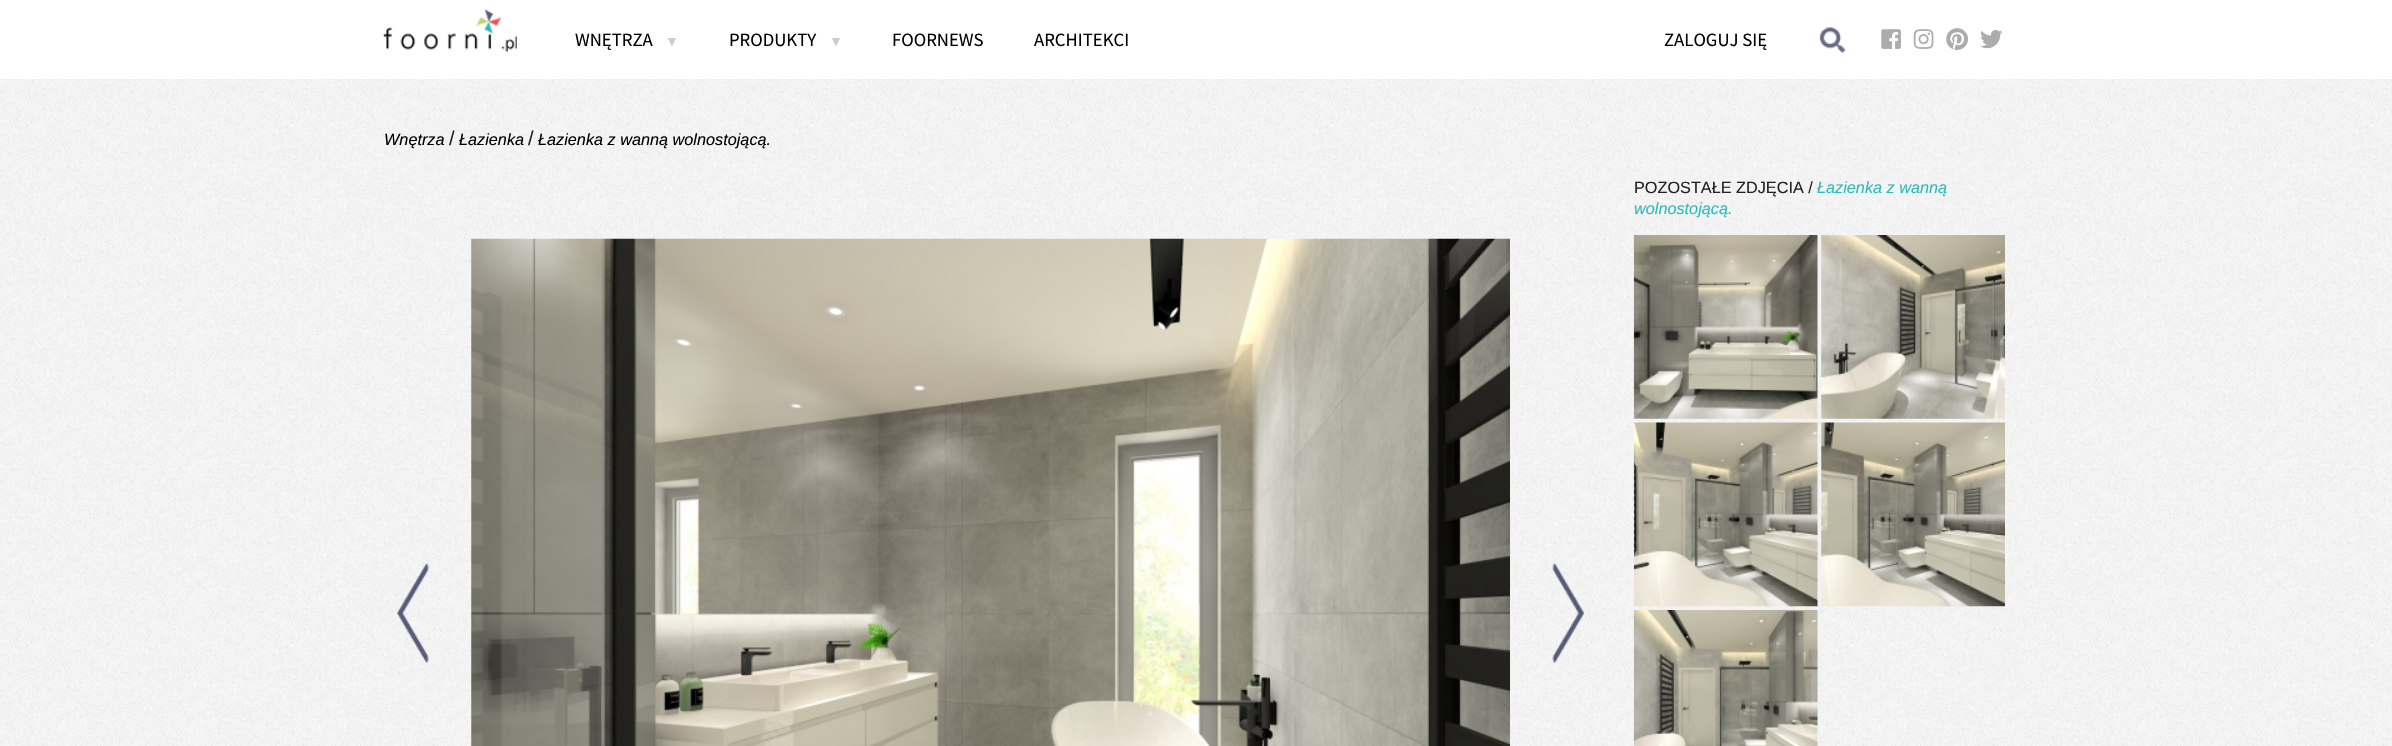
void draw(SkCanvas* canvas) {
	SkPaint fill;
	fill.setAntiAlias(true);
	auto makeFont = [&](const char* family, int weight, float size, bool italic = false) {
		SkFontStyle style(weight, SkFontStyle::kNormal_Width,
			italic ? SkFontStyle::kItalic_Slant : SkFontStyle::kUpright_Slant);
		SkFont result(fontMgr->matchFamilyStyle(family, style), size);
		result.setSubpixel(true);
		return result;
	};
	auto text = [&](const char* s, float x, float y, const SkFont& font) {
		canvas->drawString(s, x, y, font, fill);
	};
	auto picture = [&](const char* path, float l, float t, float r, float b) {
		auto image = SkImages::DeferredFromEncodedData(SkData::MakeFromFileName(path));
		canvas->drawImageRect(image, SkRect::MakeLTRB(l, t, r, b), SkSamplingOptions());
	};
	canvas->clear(0xFFFFFFFF);
	picture("image0.png", 0, 79, 2392, 746);
	picture("image1.png", 383, 9, 517, 53);
	picture("image2.png", 1819, 27, 1846, 53);
	picture("image3.png", 1881, 29, 1901, 49);
	picture("image4.png", 1913, 29, 1934, 49);
	picture("image5.png", 1946, 28, 1968, 50);
	picture("image6.png", 1980, 29, 2003, 49);
	picture("image7.png", 1633, 235, 1818, 419);
	picture("image8.png", 1821, 235, 2005, 419);
	picture("image9.png", 1633, 422, 1818, 607);
	picture("image10.png", 1821, 422, 2005, 607);
	picture("image11.png", 1633, 610, 1818, 746);
	picture("image12.png", 471, 238, 1510, 746);
	picture("image13.png", 396, 563, 429, 663);
	picture("image14.png", 1552, 563, 1584, 663);
	auto font1 = makeFont("Source Sans Pro", 400, 18.75f);
	fill.setColor(0xFF000000);
	text("WNĘTRZA", 575, 46, font1);
	auto font2 = makeFont("Liberation Sans", 400, 14);
	fill.setColor(0xFFCCCCCC);
	text("▼", 665, 46, font2);
	fill.setColor(0xFF000000);
	text("PRODUKTY", 729, 46, font1);
	fill.setColor(0xFFCCCCCC);
	text("▼", 829, 46, font2);
	fill.setColor(0xFF000000);
	text("FOORNEWS", 892, 46, font1);
	text("ARCHITEKCI", 1034, 46, font1);
	text("ZALOGUJ SIĘ", 1664, 46, font1);
	auto font3 = makeFont("Arimo", 400, 16.25f, true);
	text("Wnętrza", 384, 145, font3);
	auto font4 = makeFont("Arimo", 400, 20);
	fill.setColor(0xFF222222);
	text("/", 449, 145, font4);
	fill.setColor(0xFF000000);
	text("Łazienka", 459, 145, font3);
	fill.setColor(0xFF222222);
	text("/", 528, 145, font4);
	fill.setColor(0xFF000000);
	text("Łazienka z wanną wolnostojącą.", 538, 145, font3);
	auto font5 = makeFont("Arimo", 400, 16.25f);
	fill.setColor(0xFF222222);
	text("POZOSTAŁE ZDJĘCIA /", 1634, 193, font5);
	fill.setColor(0xFF2BBCB9);
	text("Łazienka z wanną", 1817, 193, font3);
	text("wolnostojącą.", 1634, 214, font3);
}
